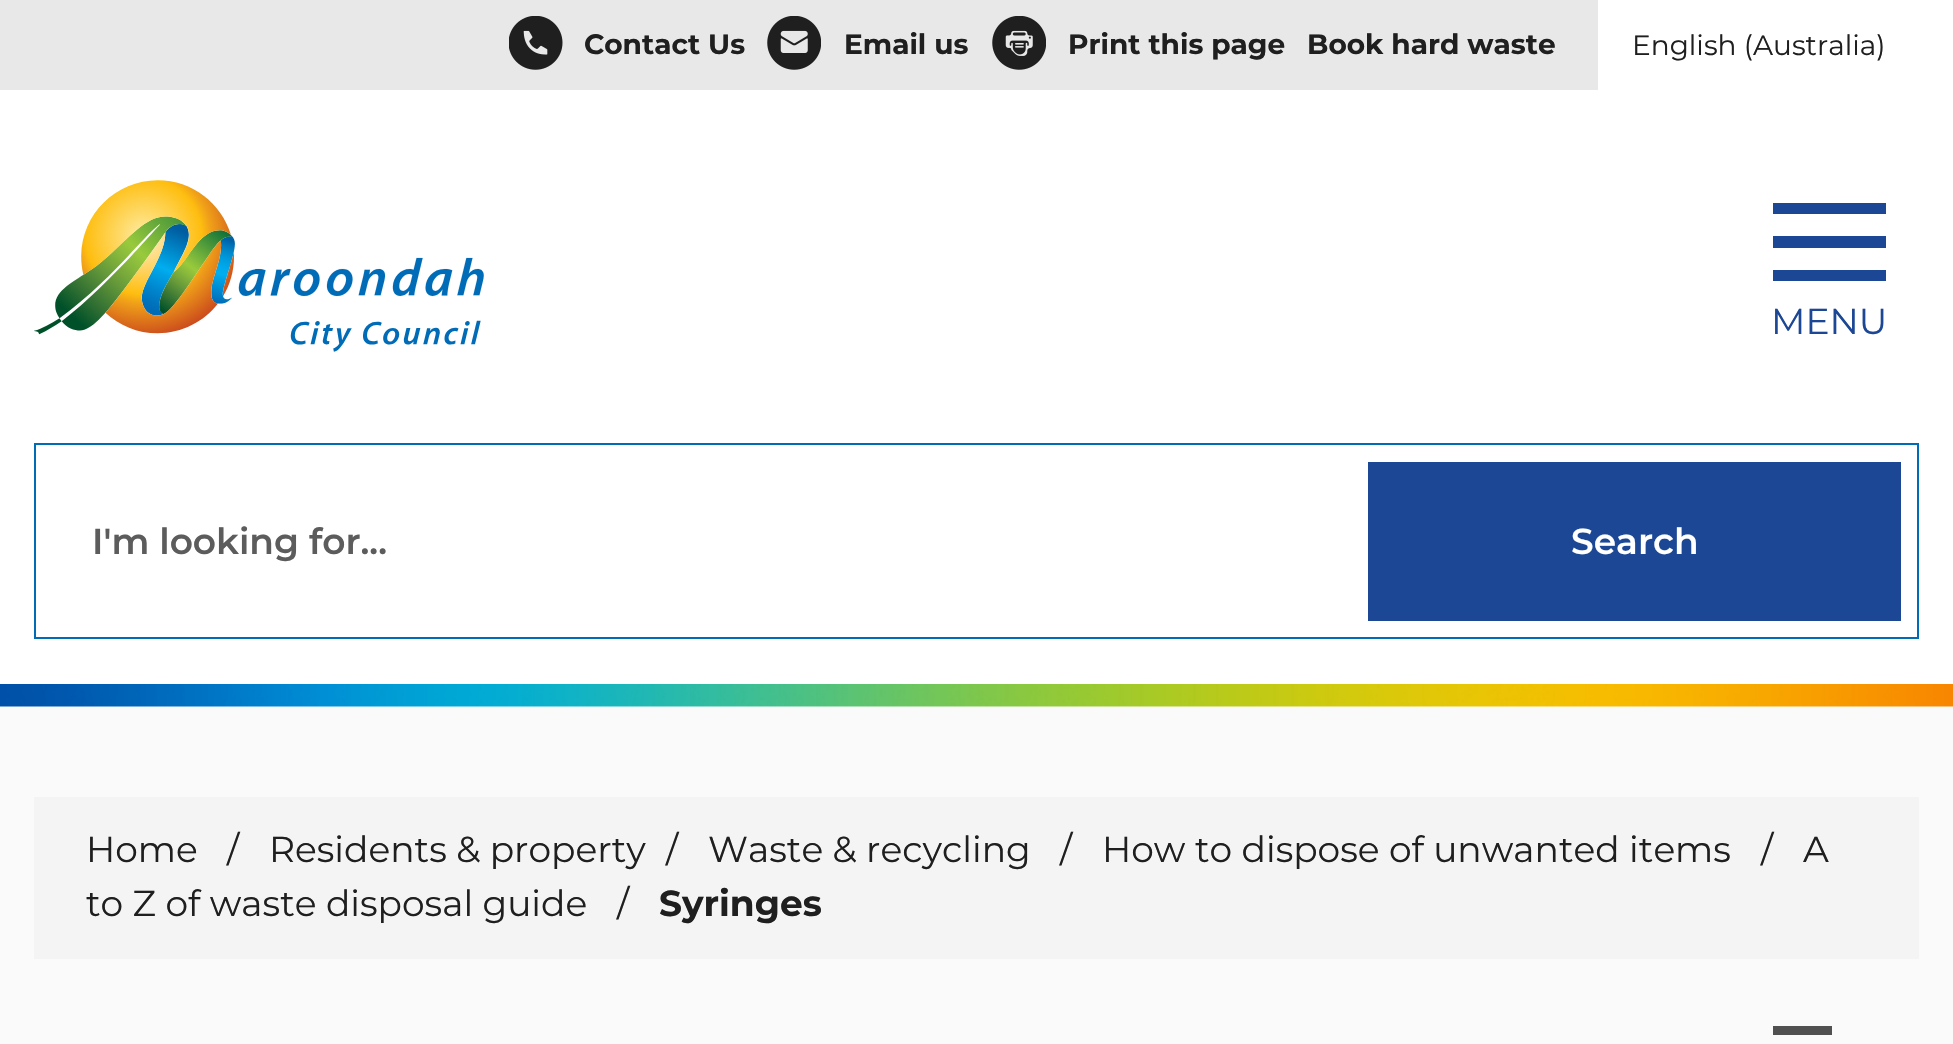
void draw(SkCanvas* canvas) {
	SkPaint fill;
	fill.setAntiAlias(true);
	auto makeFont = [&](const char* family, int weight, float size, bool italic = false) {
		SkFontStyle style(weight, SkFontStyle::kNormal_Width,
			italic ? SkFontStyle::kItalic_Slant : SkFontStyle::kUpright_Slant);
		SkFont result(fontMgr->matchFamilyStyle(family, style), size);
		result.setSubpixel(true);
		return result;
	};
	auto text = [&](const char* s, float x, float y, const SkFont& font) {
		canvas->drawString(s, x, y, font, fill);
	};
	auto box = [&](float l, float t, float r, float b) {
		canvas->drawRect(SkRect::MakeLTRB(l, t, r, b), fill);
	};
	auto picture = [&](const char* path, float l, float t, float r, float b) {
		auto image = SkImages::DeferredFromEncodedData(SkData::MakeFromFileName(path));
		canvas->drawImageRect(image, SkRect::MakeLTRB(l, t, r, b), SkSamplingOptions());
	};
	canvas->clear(0xFFFFFFFF);
	fill.setColor(0xFFE8E8E8);
	box(0, 0, 1598, 90);
	picture("image0.png", 509, 16, 563, 70);
	picture("image1.png", 767, 16, 821, 70);
	picture("image2.png", 992, 16, 1046, 70);
	picture("image3.png", 34, 180, 484, 352);
	fill.setColor(0xFF1C4795);
	box(1773, 236, 1886, 248);
	box(1773, 203, 1886, 214);
	box(1773, 270, 1886, 281);
	fill.setStyle(SkPaint::kStroke_Style);
	fill.setStrokeWidth(2);
	fill.setColor(0xFF006BB6);
	canvas->drawRect(SkRect::MakeLTRB(35, 444, 1918, 638), fill);
	fill.setStyle(SkPaint::kFill_Style);
	fill.setColor(0xFF1C4795);
	box(1368, 462, 1901, 621);
	picture("image4.png", 0, 684, 1953, 707);
	fill.setColor(0xFFFAFAFA);
	box(0, 707, 1953, 1044);
	fill.setColor(0xFFF4F4F4);
	box(34, 797, 1919, 959);
	fill.setColor(0xFF505050);
	box(1773, 1026, 1832, 1035);
	auto font1 = makeFont("Montserrat", 700, 28);
	fill.setColor(0xFF1F1F1F);
	text("Contact Us", 584, 54, font1);
	text("Email us", 844, 54, font1);
	text("Print this page", 1068, 54, font1);
	text("Book hard waste", 1307, 54, font1);
	auto font2 = makeFont("Montserrat", 400, 28);
	text("English (Australia)", 1632, 55, font2);
	auto font3 = makeFont("Montserrat", 400, 36);
	fill.setColor(0xFF1C4795);
	text("MENU", 1771, 334, font3);
	auto font4 = makeFont("Montserrat", 600, 36);
	fill.setColor(0xFF5C5C5C);
	text("I'm looking for...", 92, 554, font4);
	fill.setColor(0xFFFFFFFF);
	text("Search", 1571, 554, font4);
	fill.setColor(0xFF1F1F1F);
	text("Home", 86, 862, font3);
	text("/", 227, 862, font3);
	text("Residents & property", 269, 862, font3);
	text("/", 666, 862, font3);
	text("Waste & recycling", 708, 862, font3);
	text("/", 1060, 862, font3);
	text("How to dispose of unwanted items", 1102, 862, font3);
	text("/", 1761, 862, font3);
	text("A", 1803, 862, font3);
	text("to Z of waste disposal guide", 86, 916, font3);
	text("/", 617, 916, font3);
	auto font5 = makeFont("Montserrat", 700, 36);
	text("Syringes", 659, 916, font5);
}
